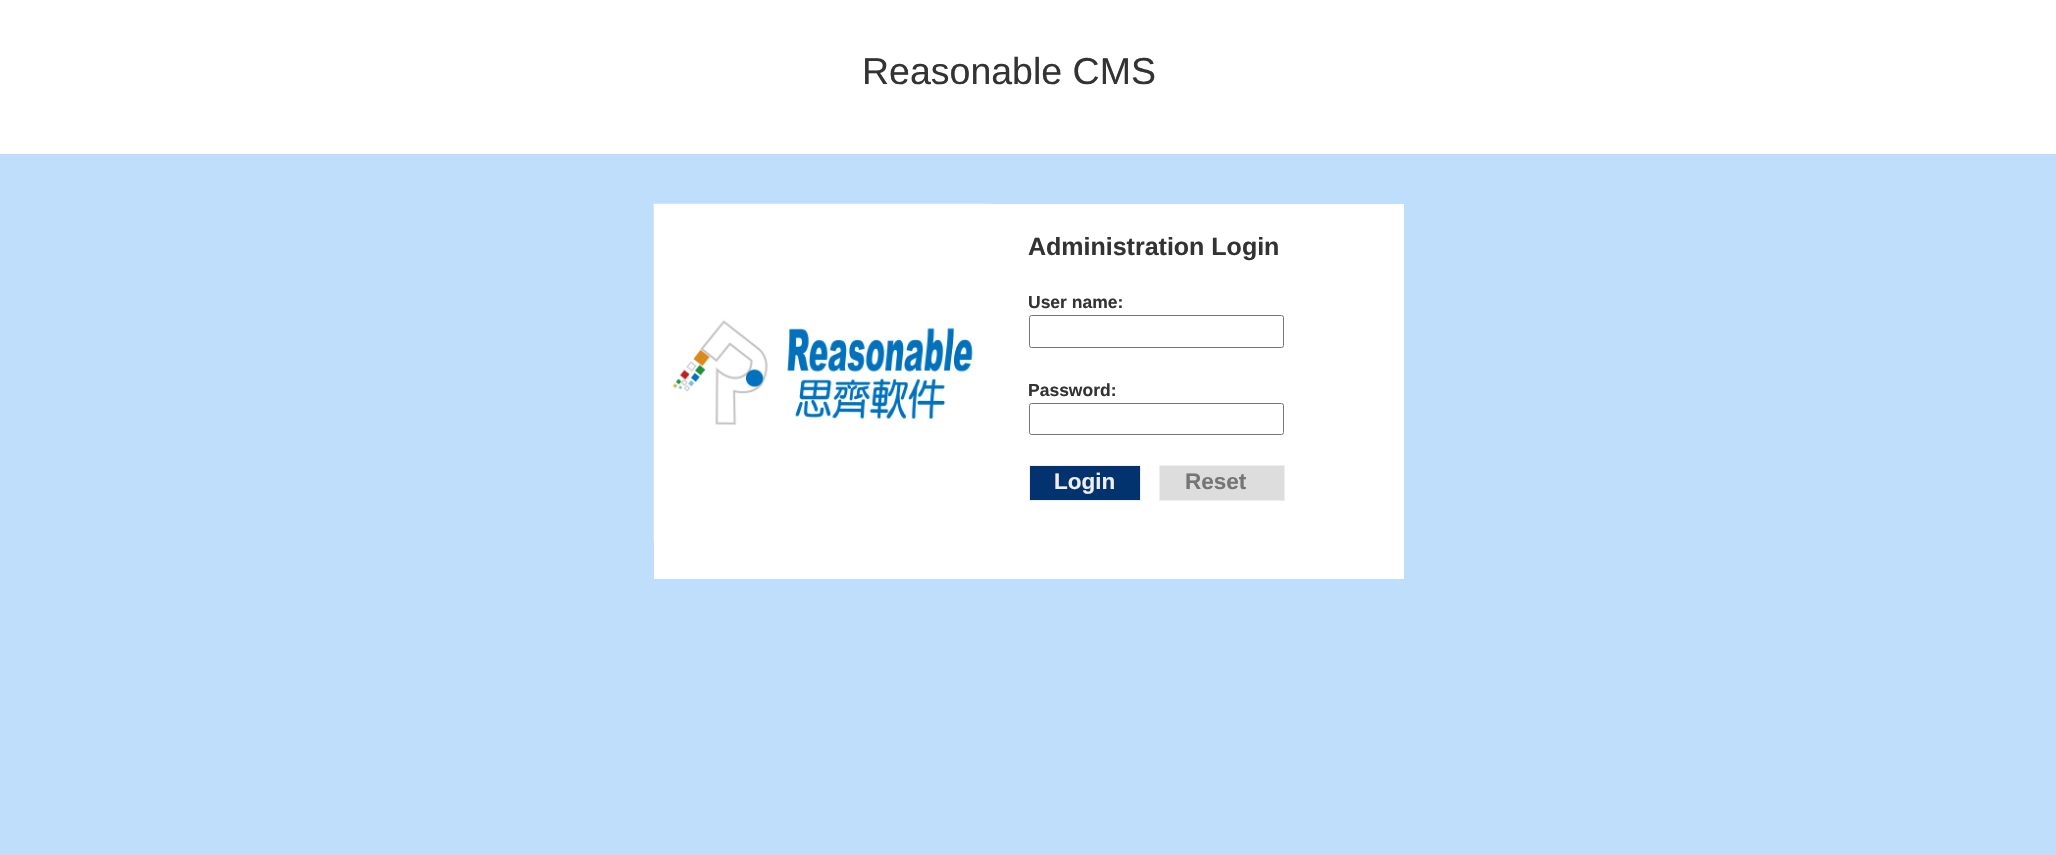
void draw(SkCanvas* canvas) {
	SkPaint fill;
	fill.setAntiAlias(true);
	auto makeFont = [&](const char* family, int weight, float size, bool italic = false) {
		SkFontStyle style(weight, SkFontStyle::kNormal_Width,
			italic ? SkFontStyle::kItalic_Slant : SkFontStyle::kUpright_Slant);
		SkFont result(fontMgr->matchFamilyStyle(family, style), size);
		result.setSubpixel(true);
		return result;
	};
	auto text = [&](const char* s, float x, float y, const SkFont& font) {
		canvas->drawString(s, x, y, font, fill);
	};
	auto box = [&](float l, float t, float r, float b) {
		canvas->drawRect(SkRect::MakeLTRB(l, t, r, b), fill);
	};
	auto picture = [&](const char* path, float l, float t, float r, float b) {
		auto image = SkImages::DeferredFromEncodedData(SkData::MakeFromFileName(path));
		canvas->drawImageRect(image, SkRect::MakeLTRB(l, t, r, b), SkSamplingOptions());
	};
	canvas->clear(0xFFFFFFFF);
	fill.setColor(0xFFBFDEFB);
	box(0, 154, 2056, 855);
	fill.setColor(0xFFFFFFFF);
	box(654, 204, 1404, 579);
	picture("image0.png", 653, 203, 992, 542);
	fill.setStyle(SkPaint::kStroke_Style);
	fill.setStrokeWidth(1);
	fill.setColor(0xFF767676);
	canvas->drawRoundRect(SkRect::MakeLTRB(1029.5f, 315.5f, 1283.5f, 347.5f), 2, 2, fill);
	canvas->drawRoundRect(SkRect::MakeLTRB(1029.5f, 403.5f, 1283.5f, 434.5f), 2, 2, fill);
	fill.setStyle(SkPaint::kFill_Style);
	fill.setColor(0xFF02336E);
	canvas->drawRect(SkRect::MakeLTRB(1029.5f, 465.5f, 1140.5f, 500.5f), fill);
	fill.setStyle(SkPaint::kStroke_Style);
	fill.setColor(0xFFEEEEEE);
	canvas->drawRect(SkRect::MakeLTRB(1029.5f, 465.5f, 1140.5f, 500.5f), fill);
	fill.setStyle(SkPaint::kFill_Style);
	fill.setColor(0xFFDDDDDD);
	canvas->drawRect(SkRect::MakeLTRB(1159.5f, 465.5f, 1284.5f, 500.5f), fill);
	fill.setStyle(SkPaint::kStroke_Style);
	fill.setColor(0xFFEEEEEE);
	canvas->drawRect(SkRect::MakeLTRB(1159.5f, 465.5f, 1284.5f, 500.5f), fill);
	auto font1 = makeFont("Liberation Sans", 400, 37.5f);
	fill.setStyle(SkPaint::kFill_Style);
	fill.setColor(0xFF333333);
	text("Reasonable CMS", 862, 84, font1);
	auto font2 = makeFont("Liberation Sans", 700, 25);
	text("Administration Login", 1028, 255, font2);
	auto font3 = makeFont("Liberation Sans", 700, 17.5f);
	text("User name:", 1028, 308, font3);
	text("Password:", 1028, 396, font3);
	auto font4 = makeFont("Liberation Sans", 700, 22.5f);
	fill.setColor(0xFFEEEEEE);
	text("Login", 1054, 489, font4);
	fill.setColor(0xFF767474);
	text("Reset", 1185, 489, font4);
}
